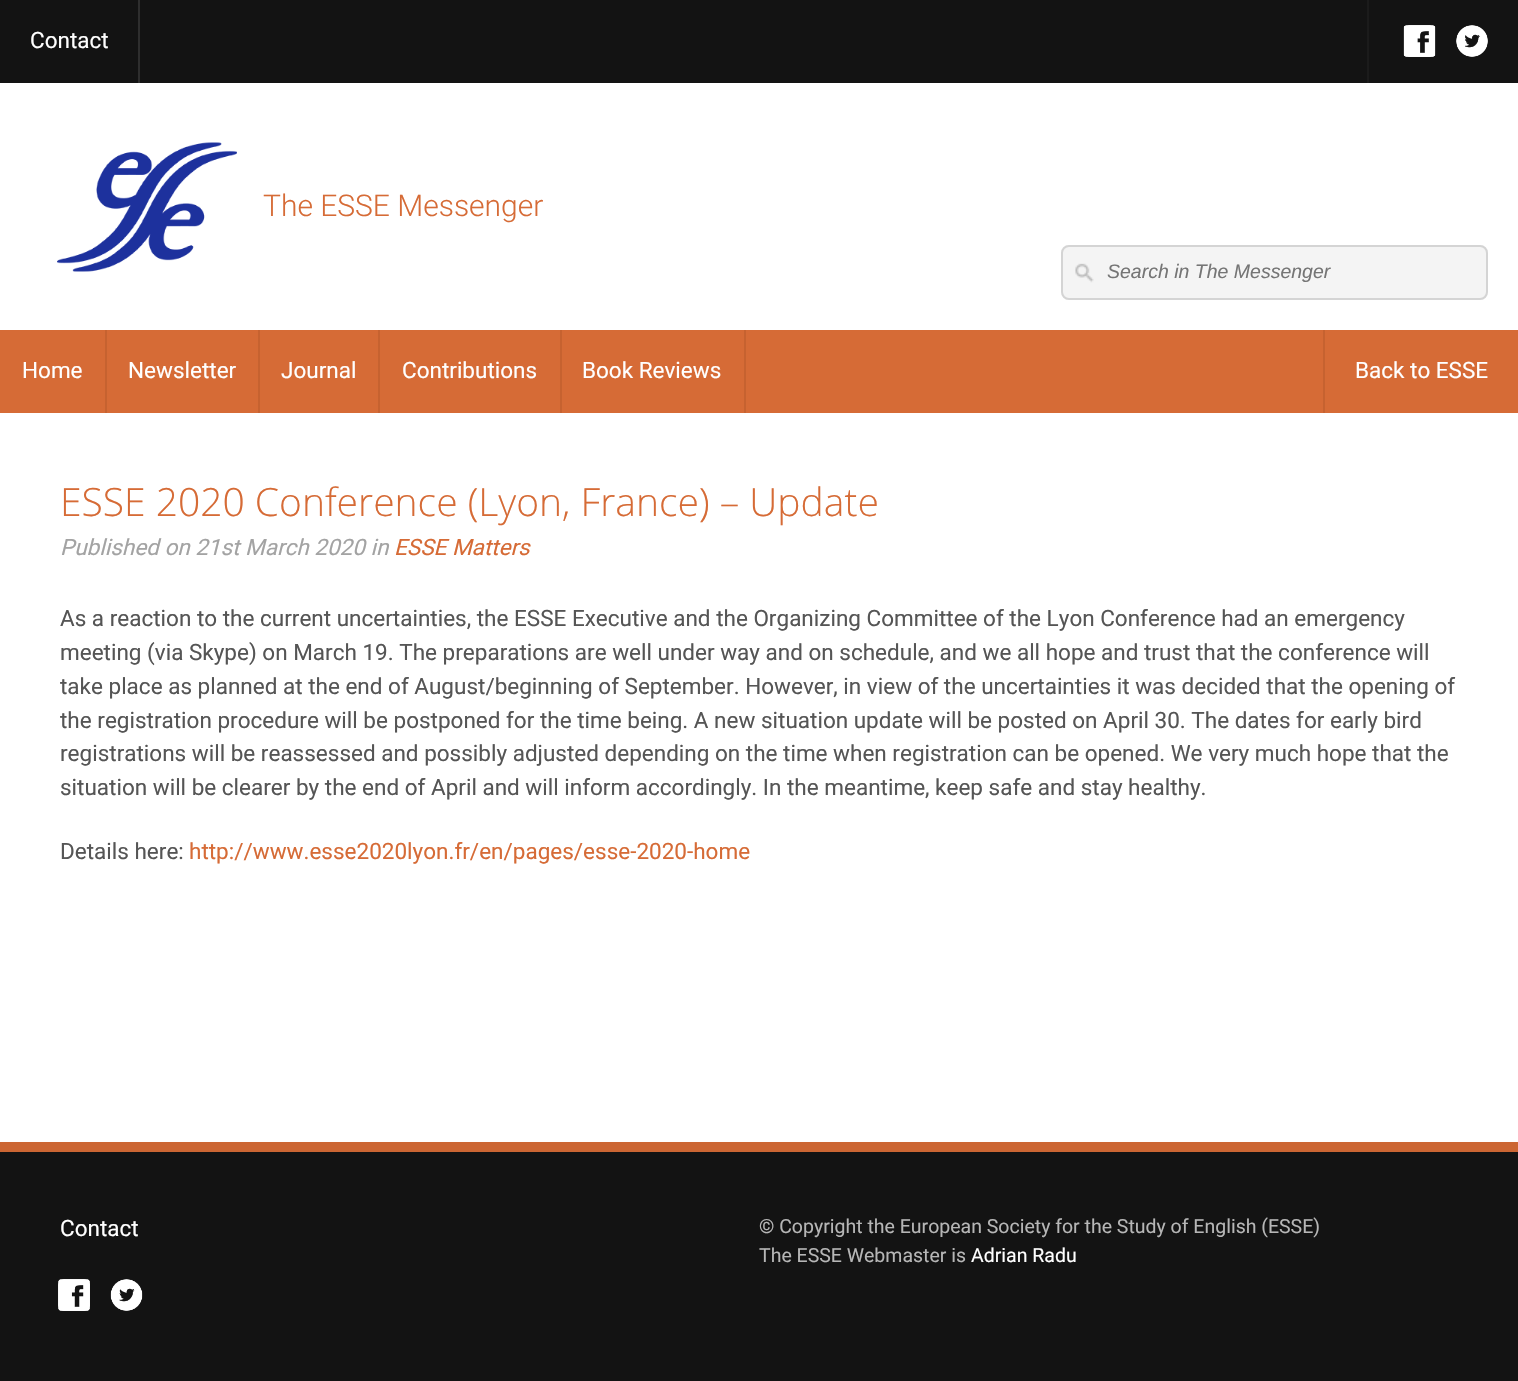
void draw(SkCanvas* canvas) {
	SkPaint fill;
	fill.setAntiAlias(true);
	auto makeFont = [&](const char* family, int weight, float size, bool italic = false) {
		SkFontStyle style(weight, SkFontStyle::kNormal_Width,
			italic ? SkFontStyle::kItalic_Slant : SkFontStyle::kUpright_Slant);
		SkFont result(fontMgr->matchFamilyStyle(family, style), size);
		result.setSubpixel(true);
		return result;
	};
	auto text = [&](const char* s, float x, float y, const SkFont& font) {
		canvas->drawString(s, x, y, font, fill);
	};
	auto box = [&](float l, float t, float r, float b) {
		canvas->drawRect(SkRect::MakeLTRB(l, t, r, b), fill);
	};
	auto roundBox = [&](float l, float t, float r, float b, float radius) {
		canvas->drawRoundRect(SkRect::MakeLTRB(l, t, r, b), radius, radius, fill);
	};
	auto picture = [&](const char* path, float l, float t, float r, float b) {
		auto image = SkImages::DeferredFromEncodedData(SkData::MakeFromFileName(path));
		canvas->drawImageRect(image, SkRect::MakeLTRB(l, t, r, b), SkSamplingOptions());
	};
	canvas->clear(0xFFFFFFFF);
	fill.setColor(0xFF131313);
	box(0, 0, 1518, 83);
	fill.setColor(0xFF2E2E2E);
	box(138, 0, 140, 83);
	fill.setColor(0xFF1B1B1B);
	box(1367, 0, 1369, 83);
	picture("image0.png", 1403, 25, 1436, 57);
	picture("image1.png", 1456, 25, 1488, 57);
	picture("image2.png", 57, 142, 237, 272);
	fill.setColor(0xFFF4F4F4);
	roundBox(1061, 245, 1488, 300, 8);
	picture("image3.png", 1075, 263, 1094, 283);
	fill.setStyle(SkPaint::kStroke_Style);
	fill.setStrokeWidth(2);
	fill.setColor(0xFFD4D4D4);
	canvas->drawRoundRect(SkRect::MakeLTRB(1062, 246, 1487, 299), 7, 7, fill);
	fill.setStyle(SkPaint::kFill_Style);
	fill.setColor(0xFFD66B36);
	box(0, 330, 1518, 413);
	fill.setColor(0xFFC66230);
	box(105, 330, 107, 413);
	box(258, 330, 260, 413);
	box(378, 330, 380, 413);
	box(560, 330, 562, 413);
	box(744, 330, 746, 413);
	box(1323, 330, 1325, 413);
	fill.setColor(0xFFCC6633);
	box(0, 1142, 1518, 1152);
	fill.setColor(0xFF131313);
	box(0, 1152, 1518, 1381);
	picture("image4.png", 58, 1279, 90, 1311);
	picture("image5.png", 110, 1279, 143, 1311);
	auto font1 = makeFont("Roboto", 400, 22.5f);
	fill.setColor(0xFFFFFFFF);
	text("Contact", 30, 48, font1);
	auto font2 = makeFont("Roboto", 300, 30);
	fill.setColor(0xFFD66B36);
	text("The ESSE Messenger", 263, 216, font2);
	auto font3 = makeFont("Liberation Sans", 400, 19.5f, true);
	fill.setColor(0xFF757575);
	text("Search in The Messenger", 1107, 278, font3);
	fill.setColor(0xFFFFFFFF);
	text("Home", 22, 378, font1);
	text("Newsletter", 128, 378, font1);
	text("Journal", 281, 378, font1);
	text("Contributions", 402, 378, font1);
	text("Book Reviews", 582, 378, font1);
	text("Back to ESSE", 1355, 378, font1);
	auto font4 = makeFont("Open Sans", 300, 39);
	fill.setColor(0xFFD66B36);
	text("ESSE 2020 Conference (Lyon, France) – Update", 60, 516, font4);
	auto font5 = makeFont("Roboto", 400, 22.5f, true);
	fill.setColor(0xFFA3A3A3);
	text("Published on 21st March 2020 in", 60, 555, font5);
	fill.setColor(0xFFD66B36);
	text("ESSE Matters", 394, 555, font5);
	fill.setColor(0xFF555555);
	text("As a reaction to the current uncertainties, the ESSE Executive and the Organizing Committee of the Lyon Conference had an emergency", 60, 626, font1);
	text("meeting (via Skype) on March 19. The preparations are well under way and on schedule, and we all hope and trust that the conference will", 60, 660, font1);
	text("take place as planned at the end of August/beginning of September. However, in view of the uncertainties it was decided that the opening of", 60, 694, font1);
	text("the registration procedure will be postponed for the time being. A new situation update will be posted on April 30. The dates for early bird", 60, 728, font1);
	text("registrations will be reassessed and possibly adjusted depending on the time when registration can be opened. We very much hope that the", 60, 761, font1);
	text("situation will be clearer by the end of April and will inform accordingly. In the meantime, keep safe and stay healthy.", 60, 795, font1);
	text("Details here:", 60, 859, font1);
	fill.setColor(0xFFD66B36);
	text("http://www.esse2020lyon.fr/en/pages/esse-2020-home", 189, 859, font1);
	fill.setColor(0xFFFFFFFF);
	text("Contact", 60, 1236, font1);
	auto font6 = makeFont("Roboto", 400, 19.5f);
	fill.setColor(0xFFB6B6B6);
	text("© Copyright the European Society for the Study of English (ESSE)", 759, 1233, font6);
	text("The ESSE Webmaster is", 759, 1262, font6);
	fill.setColor(0xFFFFFFFF);
	text("Adrian Radu", 971, 1262, font6);
}
